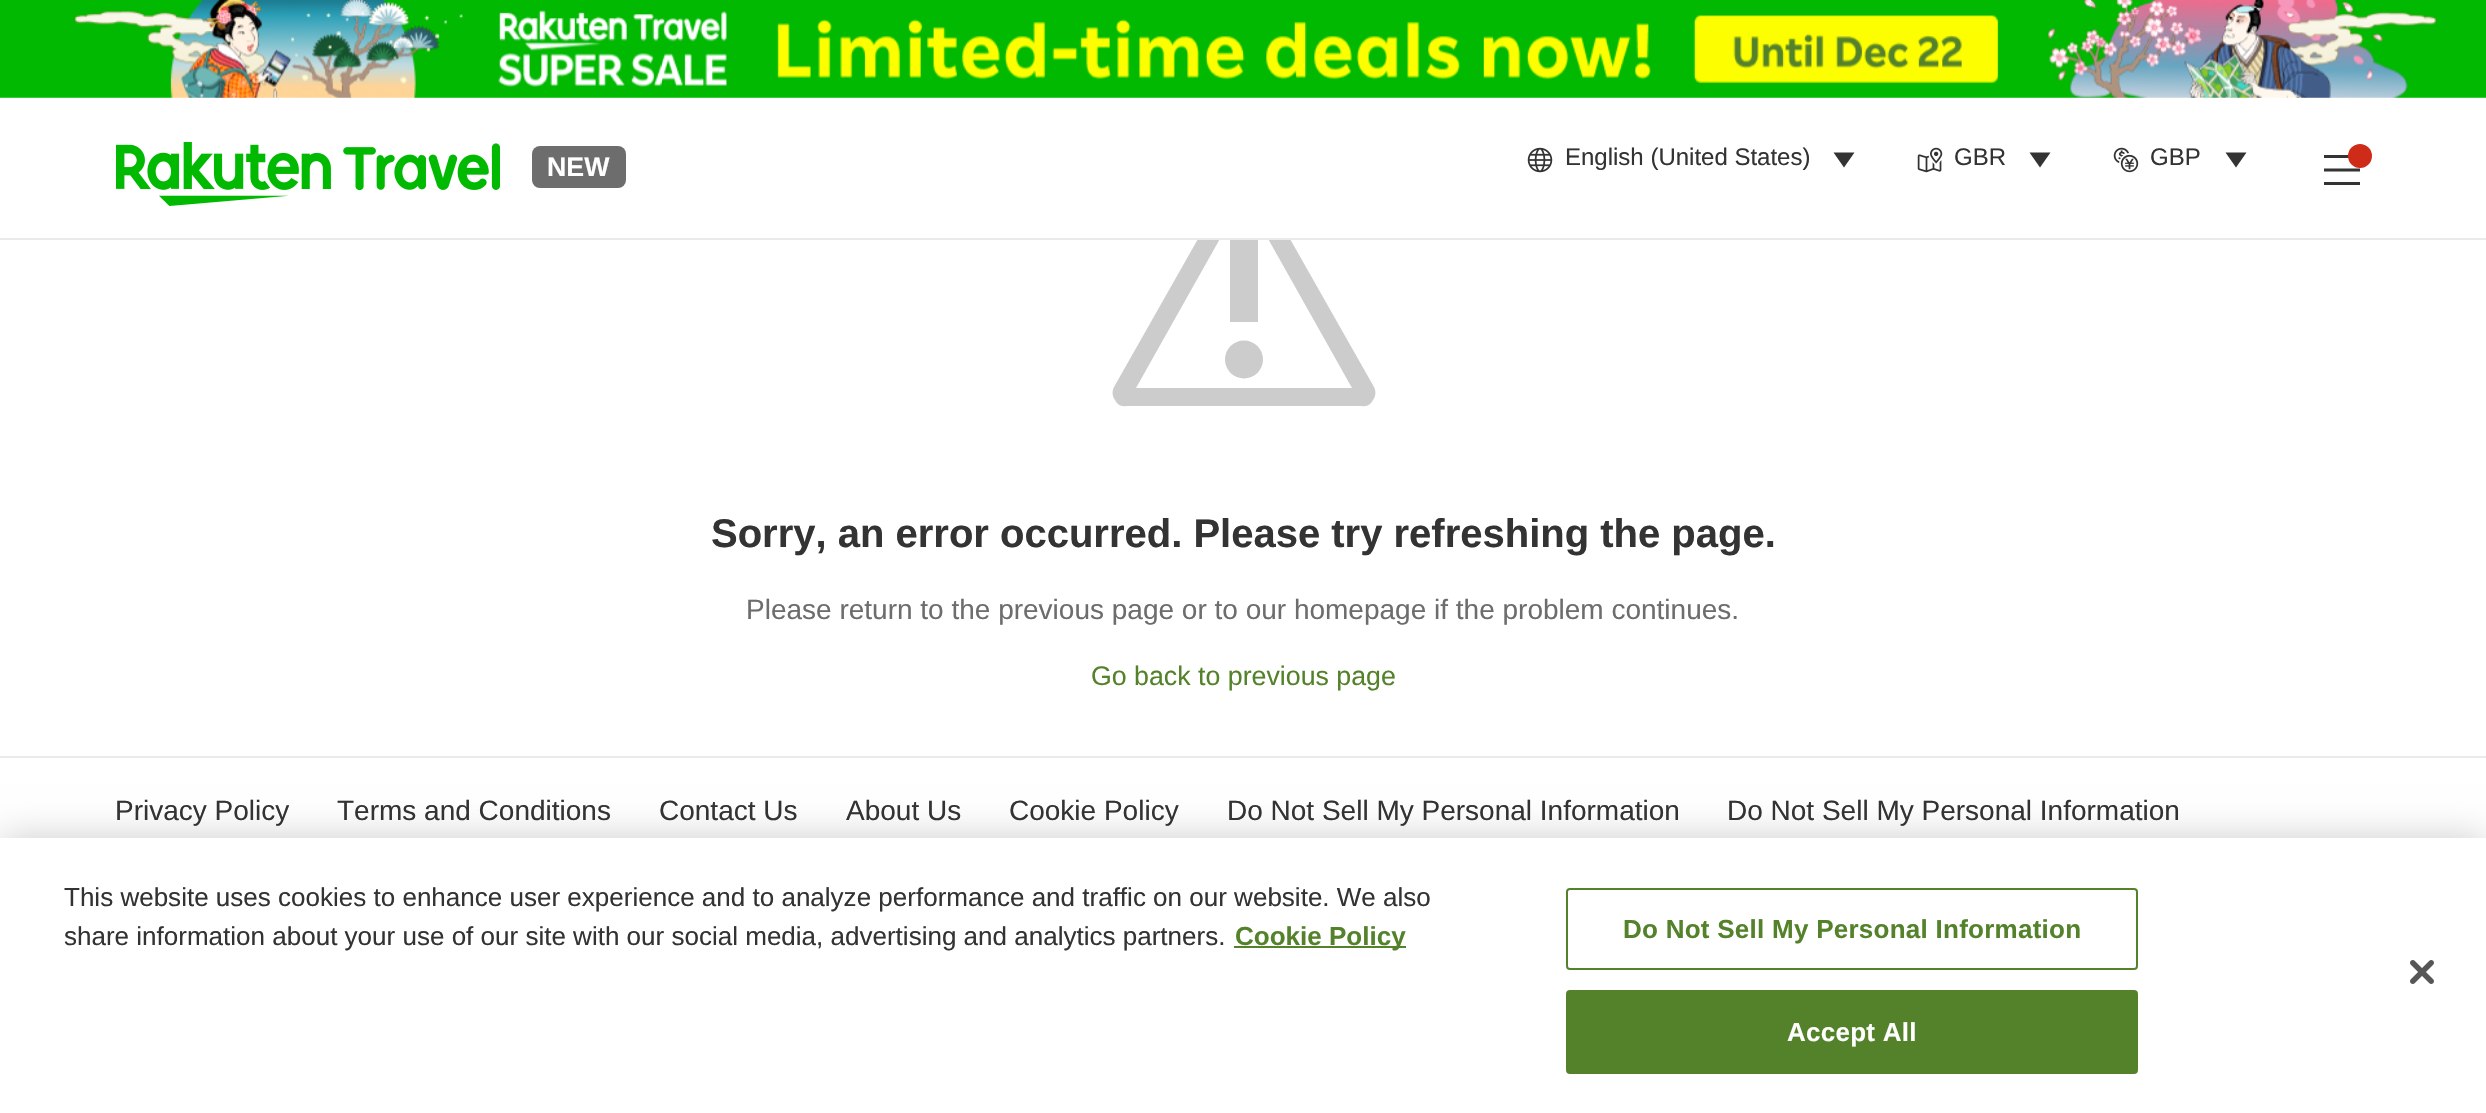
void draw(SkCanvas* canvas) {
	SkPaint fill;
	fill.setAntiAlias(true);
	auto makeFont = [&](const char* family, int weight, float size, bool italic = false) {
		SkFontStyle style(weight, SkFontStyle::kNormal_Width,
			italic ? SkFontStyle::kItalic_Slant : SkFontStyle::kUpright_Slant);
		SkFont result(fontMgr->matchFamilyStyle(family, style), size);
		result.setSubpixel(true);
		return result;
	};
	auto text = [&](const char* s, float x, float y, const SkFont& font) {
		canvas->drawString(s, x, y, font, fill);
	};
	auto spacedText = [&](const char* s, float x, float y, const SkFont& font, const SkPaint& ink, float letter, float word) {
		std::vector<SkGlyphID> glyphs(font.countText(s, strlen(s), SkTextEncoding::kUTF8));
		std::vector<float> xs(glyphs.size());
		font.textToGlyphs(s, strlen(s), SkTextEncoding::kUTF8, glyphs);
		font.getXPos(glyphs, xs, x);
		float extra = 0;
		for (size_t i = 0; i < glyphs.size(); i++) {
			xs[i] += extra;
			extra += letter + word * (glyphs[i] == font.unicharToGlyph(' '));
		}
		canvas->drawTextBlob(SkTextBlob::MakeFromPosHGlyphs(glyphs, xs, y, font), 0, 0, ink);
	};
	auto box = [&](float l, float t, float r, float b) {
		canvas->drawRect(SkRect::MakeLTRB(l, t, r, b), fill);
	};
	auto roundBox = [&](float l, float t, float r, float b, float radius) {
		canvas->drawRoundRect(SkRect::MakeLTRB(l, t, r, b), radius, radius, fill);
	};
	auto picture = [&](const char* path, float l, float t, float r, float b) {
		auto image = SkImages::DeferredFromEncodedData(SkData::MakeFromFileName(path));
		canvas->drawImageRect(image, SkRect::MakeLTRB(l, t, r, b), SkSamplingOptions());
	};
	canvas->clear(0xFFFFFFFF);
	picture("image0.png", 0, 0, 2486, 98);
	fill.setColor(0xFFCCCCCC);
	canvas->drawPath(SkPathBuilder(SkPathFillType::kEvenOdd).moveTo(1374, 387).lineTo(1256, 179).cubicTo(1253, 175, 1249, 172, 1244, 172).cubicTo(1239, 172, 1235, 175, 1232, 179).lineTo(1114, 387).cubicTo(1112, 391, 1112, 396, 1115, 400).cubicTo(1117, 404, 1121, 407, 1126, 406).lineTo(1362, 406).cubicTo(1367, 407, 1371, 404, 1373, 400).cubicTo(1376, 396, 1376, 391, 1374, 387).close().moveTo(1136, 388).lineTo(1244, 196).lineTo(1352, 388).close().detach(), fill);
	fill.setColor(0xFFFFFFFF);
	box(1198, 172, 1290, 238);
	fill.setColor(0xFFEAEAEA);
	box(0, 238, 2486, 240);
	picture("image1.png", 116, 142, 500, 206);
	fill.setColor(0xFF6D6D6D);
	roundBox(532, 146, 626, 188, 8);
	picture("image2.png", 1527, 147, 1553, 173);
	fill.setColor(0xFF333333);
	canvas->drawPath(SkPathBuilder(SkPathFillType::kEvenOdd).moveTo(1844, 167.5f).lineTo(1833.5f, 152.5f).lineTo(1854.5f, 152.5f).close().detach(), fill);
	picture("image3.png", 1917, 147, 1943, 173);
	canvas->drawPath(SkPathBuilder(SkPathFillType::kEvenOdd).moveTo(2040, 167.5f).lineTo(2029.5f, 152.5f).lineTo(2050.5f, 152.5f).close().detach(), fill);
	picture("image4.png", 2113, 147, 2139, 173);
	canvas->drawPath(SkPathBuilder(SkPathFillType::kEvenOdd).moveTo(2236, 167.5f).lineTo(2225.5f, 152.5f).lineTo(2246.5f, 152.5f).close().detach(), fill);
	picture("image5.png", 2324, 155, 2360, 185);
	fill.setColor(0xFFCE2B18);
	canvas->drawCircle(2360, 156, 12, fill);
	fill.setColor(0xFFCCCCCC);
	box(1230, 240, 1258, 322);
	canvas->drawCircle(1244, 359.5f, 19, fill);
	fill.setColor(0xFFEAEAEA);
	box(0, 756, 2486, 758);
	fill.setColor(0x33000000);
	fill.setMaskFilter(SkMaskFilter::MakeBlur(kNormal_SkBlurStyle, 18));
	canvas->drawRect(SkRect::MakeLTRB(0, 838, 2486, 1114), fill);
	fill.setMaskFilter(nullptr);
	fill.setColor(0xFFFFFFFF);
	box(0, 838, 2486, 1113);
	fill.setColor(0xFF54822B);
	box(1234, 946, 1406, 948);
	fill.setStyle(SkPaint::kStroke_Style);
	fill.setStrokeWidth(2);
	canvas->drawRoundRect(SkRect::MakeLTRB(1567, 889, 2137, 969), 3, 3, fill);
	fill.setStyle(SkPaint::kFill_Style);
	canvas->drawRoundRect(SkRect::MakeLTRB(1567, 991, 2137, 1073), 3, 3, fill);
	fill.setStyle(SkPaint::kStroke_Style);
	canvas->drawRoundRect(SkRect::MakeLTRB(1567, 991, 2137, 1073), 3, 3, fill);
	picture("image6.png", 2410, 960, 2434, 984);
	auto font1 = makeFont("Liberation Sans", 700, 26.75f);
	fill.setStyle(SkPaint::kFill_Style);
	fill.setColor(0xFFFFFFFF);
	text("NEW", 547, 176, font1);
	auto font2 = makeFont("Liberation Sans", 400, 24);
	fill.setColor(0xFF333333);
	text("English (United States)", 1565, 165, font2);
	text("GBR", 1954, 165, font2);
	text("GBP", 2150, 165, font2);
	auto font3 = makeFont("Liberation Sans", 700, 40);
	text("Sorry, an error occurred. Please try refreshing the page.", 711, 547, font3);
	auto font4 = makeFont("Liberation Sans", 400, 28);
	fill.setColor(0xFF6D6D6D);
	text("Please return to the previous page or to our homepage if the problem continues.", 746, 619, font4);
	auto font5 = makeFont("Liberation Sans", 400, 26.75f);
	fill.setColor(0xFF54822B);
	text("Go back to previous page", 1091, 685, font5);
	fill.setColor(0xFF333333);
	text("Privacy Policy", 115, 820, font4);
	text("Terms and Conditions", 337, 820, font4);
	text("Contact Us", 659, 820, font4);
	text("About Us", 846, 820, font4);
	text("Cookie Policy", 1009, 820, font4);
	text("Do Not Sell My Personal Information", 1227, 820, font4);
	text("Do Not Sell My Personal Information", 1727, 820, font4);
	auto font6 = makeFont("Liberation Sans", 400, 26.02f);
	text("This website uses cookies to enhance user experience and to analyze performance and traffic on our website. We also", 64, 906, font6);
	text("share information about your use of our site with our social media, advertising and analytics partners.", 64, 945, font6);
	auto font7 = makeFont("Liberation Sans", 700, 26.02f);
	fill.setColor(0xFF54822B);
	text("Cookie Policy", 1235, 945, font7);
	spacedText("Do Not Sell My Personal Information", 1623, 938, font7, fill, 0.25f, 0);
	fill.setColor(0xFFFFFFFF);
	spacedText("Accept All", 1787, 1041, font7, fill, 0.25f, 0);
}
